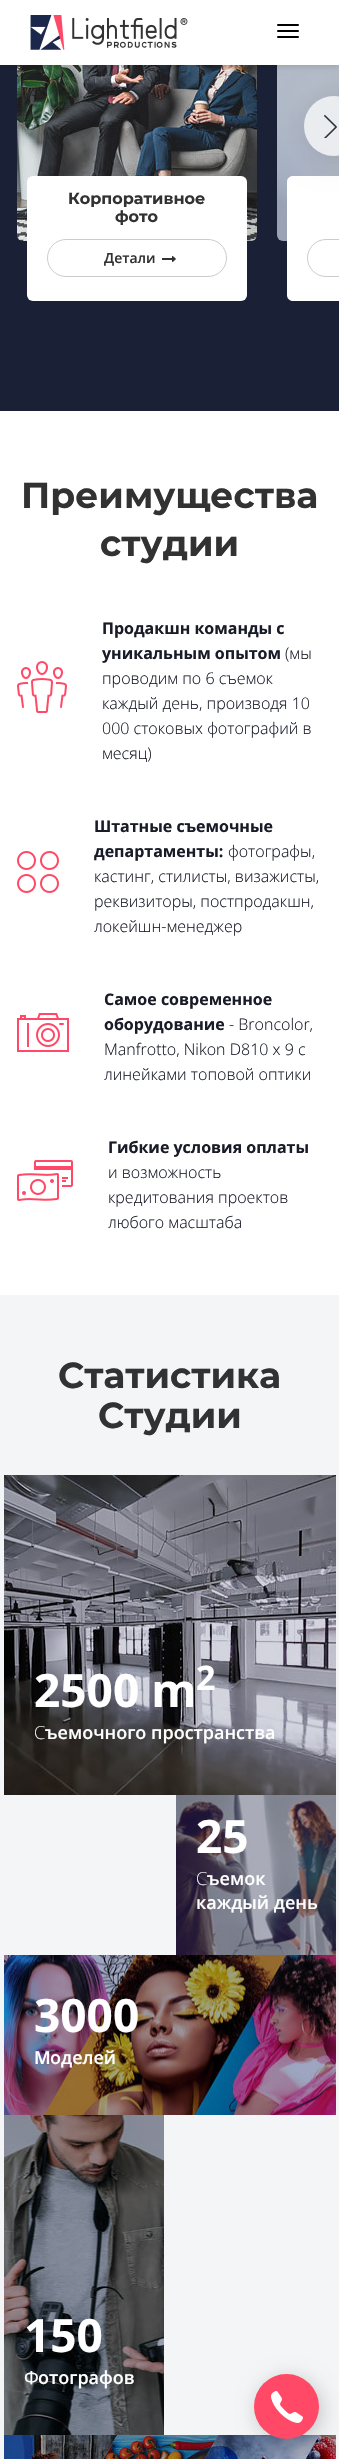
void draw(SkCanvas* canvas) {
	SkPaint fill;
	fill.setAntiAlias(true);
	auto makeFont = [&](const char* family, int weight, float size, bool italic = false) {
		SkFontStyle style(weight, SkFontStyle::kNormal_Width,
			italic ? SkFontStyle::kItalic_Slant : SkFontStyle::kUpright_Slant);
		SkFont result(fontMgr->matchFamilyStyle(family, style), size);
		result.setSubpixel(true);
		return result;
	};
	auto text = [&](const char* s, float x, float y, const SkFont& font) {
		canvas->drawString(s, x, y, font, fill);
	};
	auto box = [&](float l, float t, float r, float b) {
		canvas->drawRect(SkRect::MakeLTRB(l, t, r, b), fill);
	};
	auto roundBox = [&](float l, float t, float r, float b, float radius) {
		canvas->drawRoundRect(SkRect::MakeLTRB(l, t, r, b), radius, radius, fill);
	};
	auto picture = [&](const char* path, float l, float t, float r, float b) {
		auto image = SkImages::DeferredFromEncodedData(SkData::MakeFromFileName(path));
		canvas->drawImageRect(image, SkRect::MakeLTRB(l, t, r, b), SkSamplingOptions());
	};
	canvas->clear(0xFFFFFFFF);
	fill.setColor(0xFF1A2136);
	box(0, 65, 339, 411);
	picture("image3.png", 17, 65, 257, 241);
	picture("image5.png", 277, 65, 339, 241);
	fill.setColor(0x26000000);
	fill.setMaskFilter(SkMaskFilter::MakeBlur(kNormal_SkBlurStyle, 3));
	canvas->drawRect(SkRect::MakeLTRB(0, 1, 339, 66), fill);
	fill.setMaskFilter(nullptr);
	fill.setColor(0xFFFFFFFF);
	canvas->drawPath(SkPathBuilder().moveTo(293, 176).lineTo(339, 176).lineTo(339, 301).lineTo(293, 301).cubicTo(289.5f, 301, 287, 298.5f, 287, 295).lineTo(287, 182).cubicTo(287, 178.5f, 289.5f, 176, 293, 176).close().detach(), fill);
	canvas->save();
	canvas->clipPath(SkPathBuilder(SkPathFillType::kEvenOdd).moveTo(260, 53).lineTo(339, 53).lineTo(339, 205).lineTo(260, 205).close().moveTo(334, 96).cubicTo(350.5f, 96, 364, 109.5f, 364, 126).cubicTo(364, 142.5f, 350.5f, 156, 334, 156).cubicTo(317.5f, 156, 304, 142.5f, 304, 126).cubicTo(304, 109.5f, 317.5f, 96, 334, 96).close().detach(), true);
	fill.setColor(0x24000000);
	fill.setMaskFilter(SkMaskFilter::MakeBlur(kNormal_SkBlurStyle, 15));
	canvas->drawRoundRect(SkRect::MakeLTRB(306, 99, 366, 159), 30, 30, fill);
	fill.setMaskFilter(nullptr);
	canvas->restore();
	fill.setColor(0xFFFFFFFF);
	box(0, 0, 339, 65);
	picture("image0.png", 30, 15, 188, 50);
	fill.setColor(0xFF000000);
	roundBox(277, 24, 299, 26, 1);
	roundBox(277, 30, 299, 32, 1);
	roundBox(277, 36, 299, 38, 1);
	fill.setColor(0xFFF4F5F6);
	box(0, 1295, 339, 2459);
	picture("image14.png", 4, 2435, 336, 2459);
	fill.setColor(0x33000000);
	fill.setMaskFilter(SkMaskFilter::MakeBlur(kNormal_SkBlurStyle, 10));
	canvas->drawRoundRect(SkRect::MakeLTRB(257, 2378, 322, 2443), 32.5f, 32.5f, fill);
	fill.setMaskFilter(nullptr);
	fill.setColor(0xFFFF4966);
	canvas->drawCircle(286.5f, 2406.5f, 32.5f, fill);
	picture("image1.png", 271, 2391, 303, 2423);
	fill.setColor(0xB8FFFFFF);
	canvas->drawCircle(334, 126, 30, fill);
	picture("image2.png", 324, 115, 337, 138);
	fill.setColor(0xFFFFFFFF);
	roundBox(27, 176, 247, 301, 6);
	fill.setStyle(SkPaint::kStroke_Style);
	fill.setStrokeWidth(1);
	fill.setColor(0xFFCCCCCC);
	canvas->drawRoundRect(SkRect::MakeLTRB(47.5f, 239.5f, 226.5f, 276.5f), 18.5f, 18.5f, fill);
	picture("image4.png", 162, 256, 176, 262);
	canvas->drawRoundRect(SkRect::MakeLTRB(307.5f, 239.5f, 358.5f, 276.5f), 18.5f, 18.5f, fill);
	picture("image6.png", 17, 661, 67, 713);
	picture("image7.png", 17, 851, 59, 893);
	picture("image8.png", 17, 1013, 69, 1052);
	picture("image9.png", 17, 1160, 73, 1201);
	picture("image10.png", 4, 1475, 336, 1795);
	picture("image11.png", 176, 1795, 336, 1955);
	picture("image12.png", 4, 1955, 336, 2115);
	picture("image13.png", 4, 2115, 164, 2435);
	auto font1 = makeFont("Montserrat", 700, 16);
	fill.setStyle(SkPaint::kFill_Style);
	fill.setColor(0xFF323232);
	text("Корпоративное", 68, 204, font1);
	text("фото", 115, 222, font1);
	auto font2 = makeFont("Open Sans", 600, 14);
	text("Детали", 104, 263, font2);
	auto font3 = makeFont("Montserrat", 700, 36);
	text("Преимущества", 21, 508, font3);
	text("студии", 100, 556, font3);
	auto font4 = makeFont("Open Sans", 700, 16);
	fill.setColor(0xFF191C28);
	text("Продакшн команды с", 102, 634, font4);
	text("уникальным опытом", 102, 659, font4);
	auto font5 = makeFont("Open Sans", 300, 16);
	text("(мы", 285, 659, font5);
	text("проводим по 6 съемок", 102, 684, font5);
	text("каждый день, производя 10", 102, 709, font5);
	text("000 стоковых фотографий в", 102, 734, font5);
	text("месяц)", 102, 759, font5);
	text("Штатные съемочные", 94, 832, font4);
	text("департаменты:", 94, 857, font4);
	text("фотографы,", 228, 857, font5);
	text("кастинг, стилисты, визажисты,", 94, 882, font5);
	text("реквизиторы, постпродакшн,", 94, 907, font5);
	text("локейшн-менеджер", 94, 932, font5);
	text("Самое современное", 104, 1005, font4);
	text("оборудование", 104, 1030, font4);
	text("- Broncolor,", 229, 1030, font5);
	text("Manfrotto, Nikon D810 x 9 с", 104, 1055, font5);
	text("линейками топовой оптики", 104, 1080, font5);
	text("Гибкие условия оплаты", 108, 1153, font4);
	text("и возможность", 108, 1178, font5);
	text("кредитования проектов", 108, 1203, font5);
	text("любого масштаба", 108, 1228, font5);
	fill.setColor(0xFF323232);
	text("Статистика", 58, 1388, font3);
	text("Студии", 98, 1428, font3);
	auto font6 = makeFont("Open Sans", 700, 46);
	fill.setColor(0xFFFFFFFF);
	text("2500 m", 34, 1707, font6);
	auto font7 = makeFont("Open Sans", 700, 34);
	text("2", 196, 1690, font7);
	auto font8 = makeFont("Noto Sans", 200, 18);
	text("С", 34, 1739, font8);
	auto font9 = makeFont("Open Sans", 600, 18);
	text("ъемочного пространства", 45, 1739, font9);
	text("25", 196, 1853, font6);
	text("С", 196, 1885, font8);
	text("ъемок", 207, 1885, font9);
	text("каждый день", 196, 1909, font9);
	text("3000", 34, 2032, font6);
	auto font10 = makeFont("Noto Sans", 600, 18);
	text("М", 34, 2064, font10);
	text("оделей", 50, 2064, font9);
	text("150", 24, 2352, font6);
	auto font11 = makeFont("Noto Sans", 400, 18);
	text("Ф", 24, 2384, font11);
	text("отографов", 38, 2384, font9);
}
